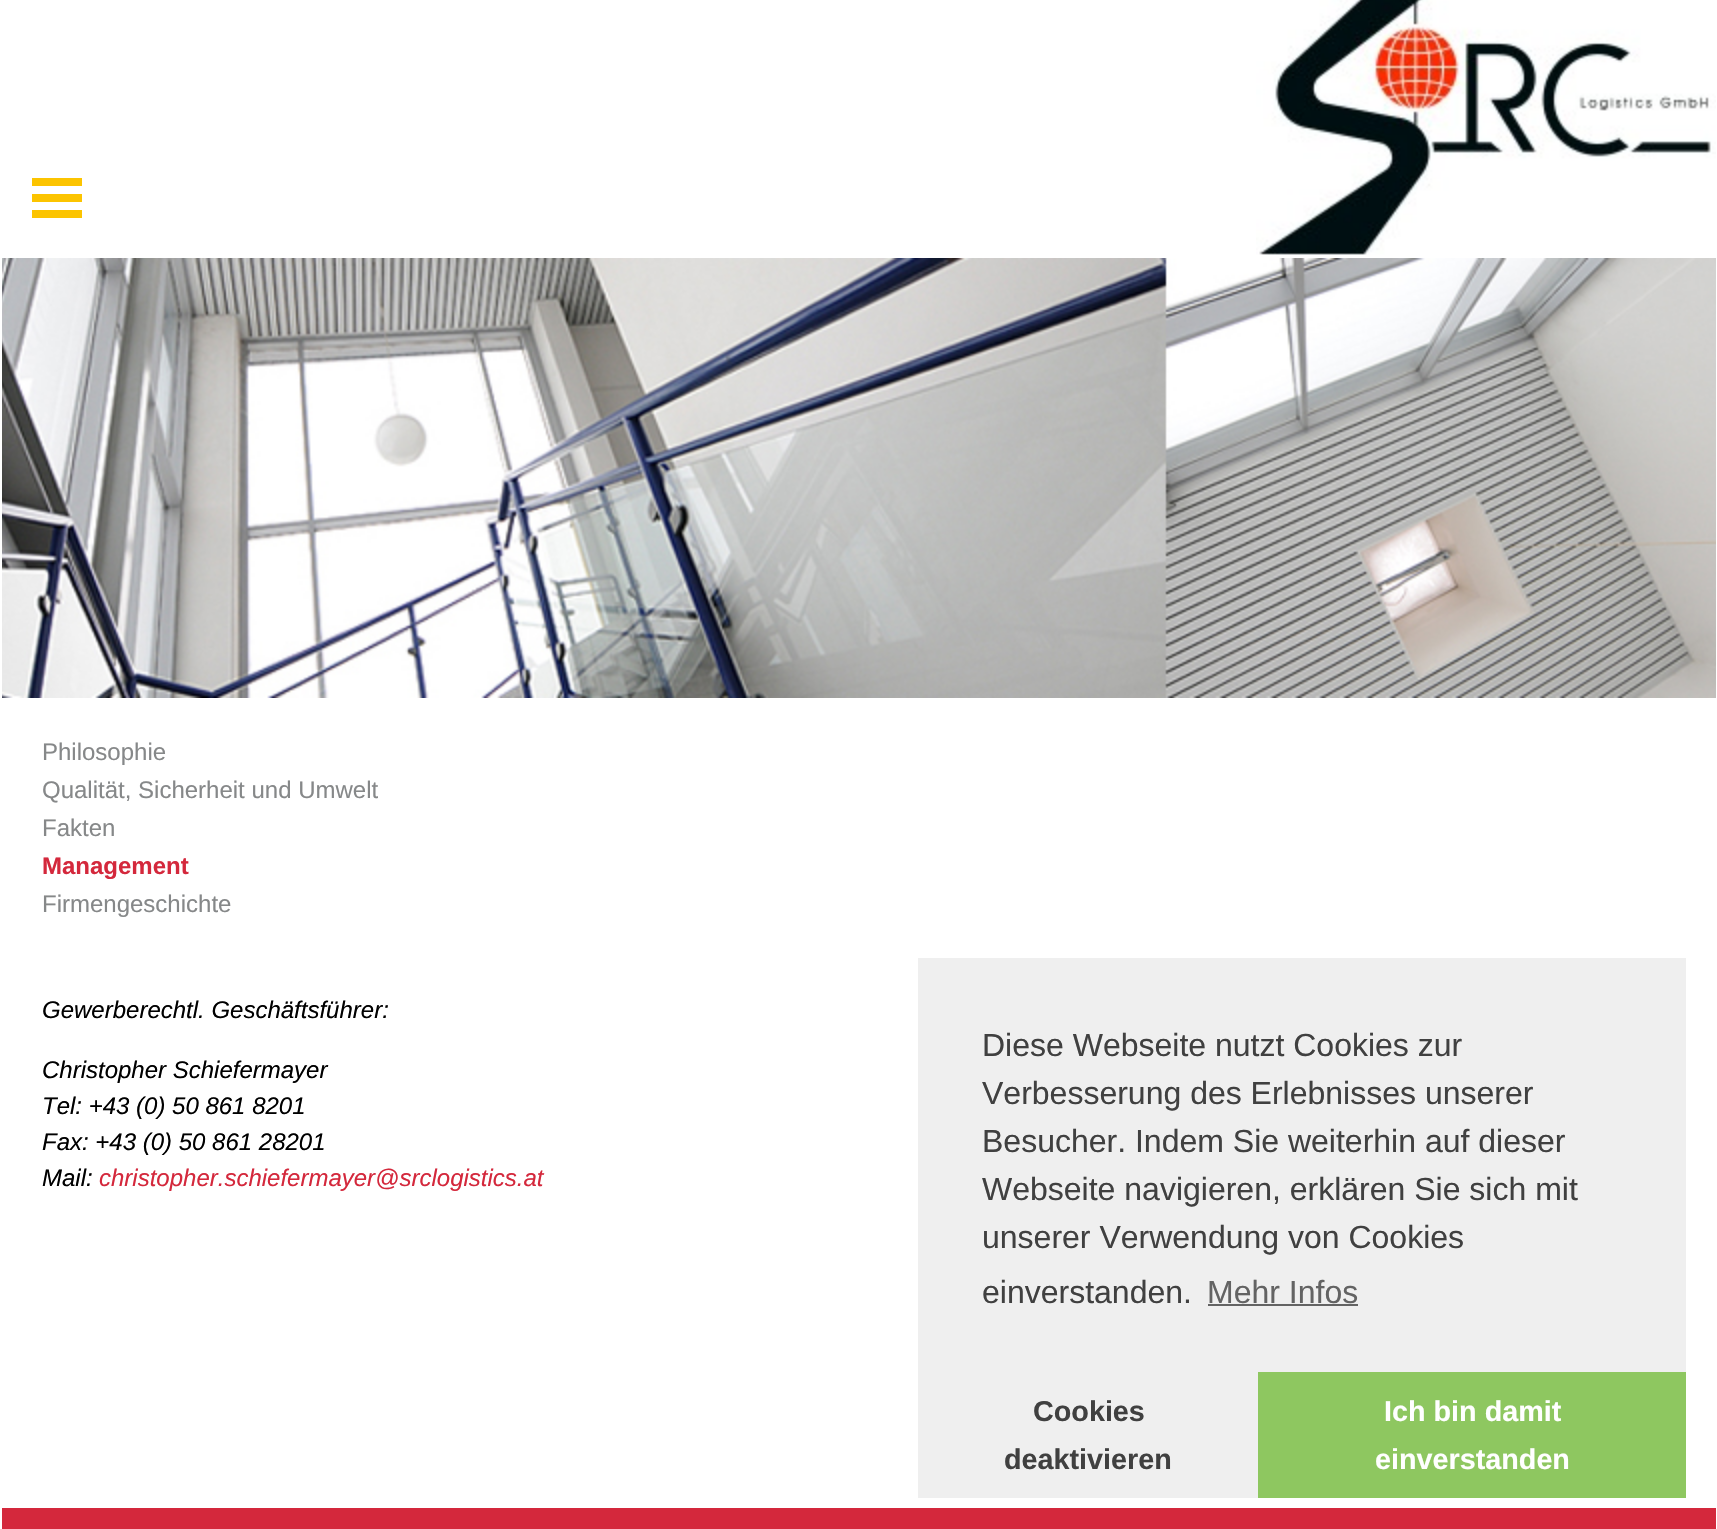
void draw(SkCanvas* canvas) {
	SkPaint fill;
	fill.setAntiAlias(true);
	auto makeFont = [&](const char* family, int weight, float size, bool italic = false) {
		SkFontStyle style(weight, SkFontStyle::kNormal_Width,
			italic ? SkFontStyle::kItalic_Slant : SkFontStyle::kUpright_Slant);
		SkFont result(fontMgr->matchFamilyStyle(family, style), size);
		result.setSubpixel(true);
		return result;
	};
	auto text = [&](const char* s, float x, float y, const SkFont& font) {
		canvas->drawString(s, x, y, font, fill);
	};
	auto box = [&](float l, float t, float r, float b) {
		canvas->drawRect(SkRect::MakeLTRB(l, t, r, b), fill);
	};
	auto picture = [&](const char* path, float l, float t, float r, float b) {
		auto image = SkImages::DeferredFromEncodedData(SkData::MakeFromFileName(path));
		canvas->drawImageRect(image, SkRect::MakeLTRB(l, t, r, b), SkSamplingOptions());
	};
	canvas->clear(0xFFFFFFFF);
	fill.setColor(0xFFFCC400);
	box(32, 178, 82, 186);
	box(32, 194, 82, 202);
	box(32, 210, 82, 218);
	picture("image0.png", 1256, 0, 1716, 255);
	picture("image1.png", 2, 258, 1716, 698);
	fill.setColor(0xFFD4283C);
	box(2, 1508, 1716, 1529);
	fill.setColor(0xFFEFEFEF);
	box(918, 958, 1686, 1498);
	fill.setColor(0xFF636363);
	box(1208, 1304, 1358, 1306);
	fill.setColor(0xFF8EC760);
	box(1258, 1372, 1686, 1498);
	auto font1 = makeFont("Liberation Sans", 400, 24);
	fill.setColor(0xFF868889);
	text("Philosophie", 42, 760, font1);
	text("Qualität, Sicherheit und Umwelt", 42, 798, font1);
	text("Fakten", 42, 836, font1);
	auto font2 = makeFont("Liberation Sans", 700, 24);
	fill.setColor(0xFFD4283C);
	text("Management", 42, 874, font2);
	fill.setColor(0xFF868889);
	text("Firmengeschichte", 42, 912, font1);
	auto font3 = makeFont("Liberation Sans", 400, 24, true);
	fill.setColor(0xFF000000);
	text("Gewerberechtl. Geschäftsführer:", 42, 1018, font3);
	text("Christopher Schiefermayer", 42, 1078, font3);
	text("Tel: +43 (0) 50 861 8201", 42, 1114, font3);
	text("Fax: +43 (0) 50 861 28201", 42, 1150, font3);
	text("Mail:", 42, 1186, font3);
	fill.setColor(0xFFD4283C);
	text("christopher.schiefermayer@srclogistics.at", 99, 1186, font3);
	auto font4 = makeFont("Liberation Sans", 400, 32);
	fill.setColor(0xFF404040);
	text("Diese Webseite nutzt Cookies zur", 982, 1056, font4);
	text("Verbesserung des Erlebnisses unserer", 982, 1104, font4);
	text("Besucher. Indem Sie weiterhin auf dieser", 982, 1152, font4);
	text("Webseite navigieren, erklären Sie sich mit", 982, 1200, font4);
	text("unserer Verwendung von Cookies", 982, 1248, font4);
	text("einverstanden.", 982, 1303, font4);
	fill.setColor(0xFF636363);
	text("Mehr Infos", 1207, 1303, font4);
	auto font5 = makeFont("Liberation Sans", 700, 28.75f);
	fill.setColor(0xFF404040);
	text("Cookies", 1033, 1421, font5);
	text("deaktivieren", 1004, 1469, font5);
	fill.setColor(0xFFFFFFFF);
	text("Ich bin damit", 1384, 1421, font5);
	text("einverstanden", 1375, 1469, font5);
}
